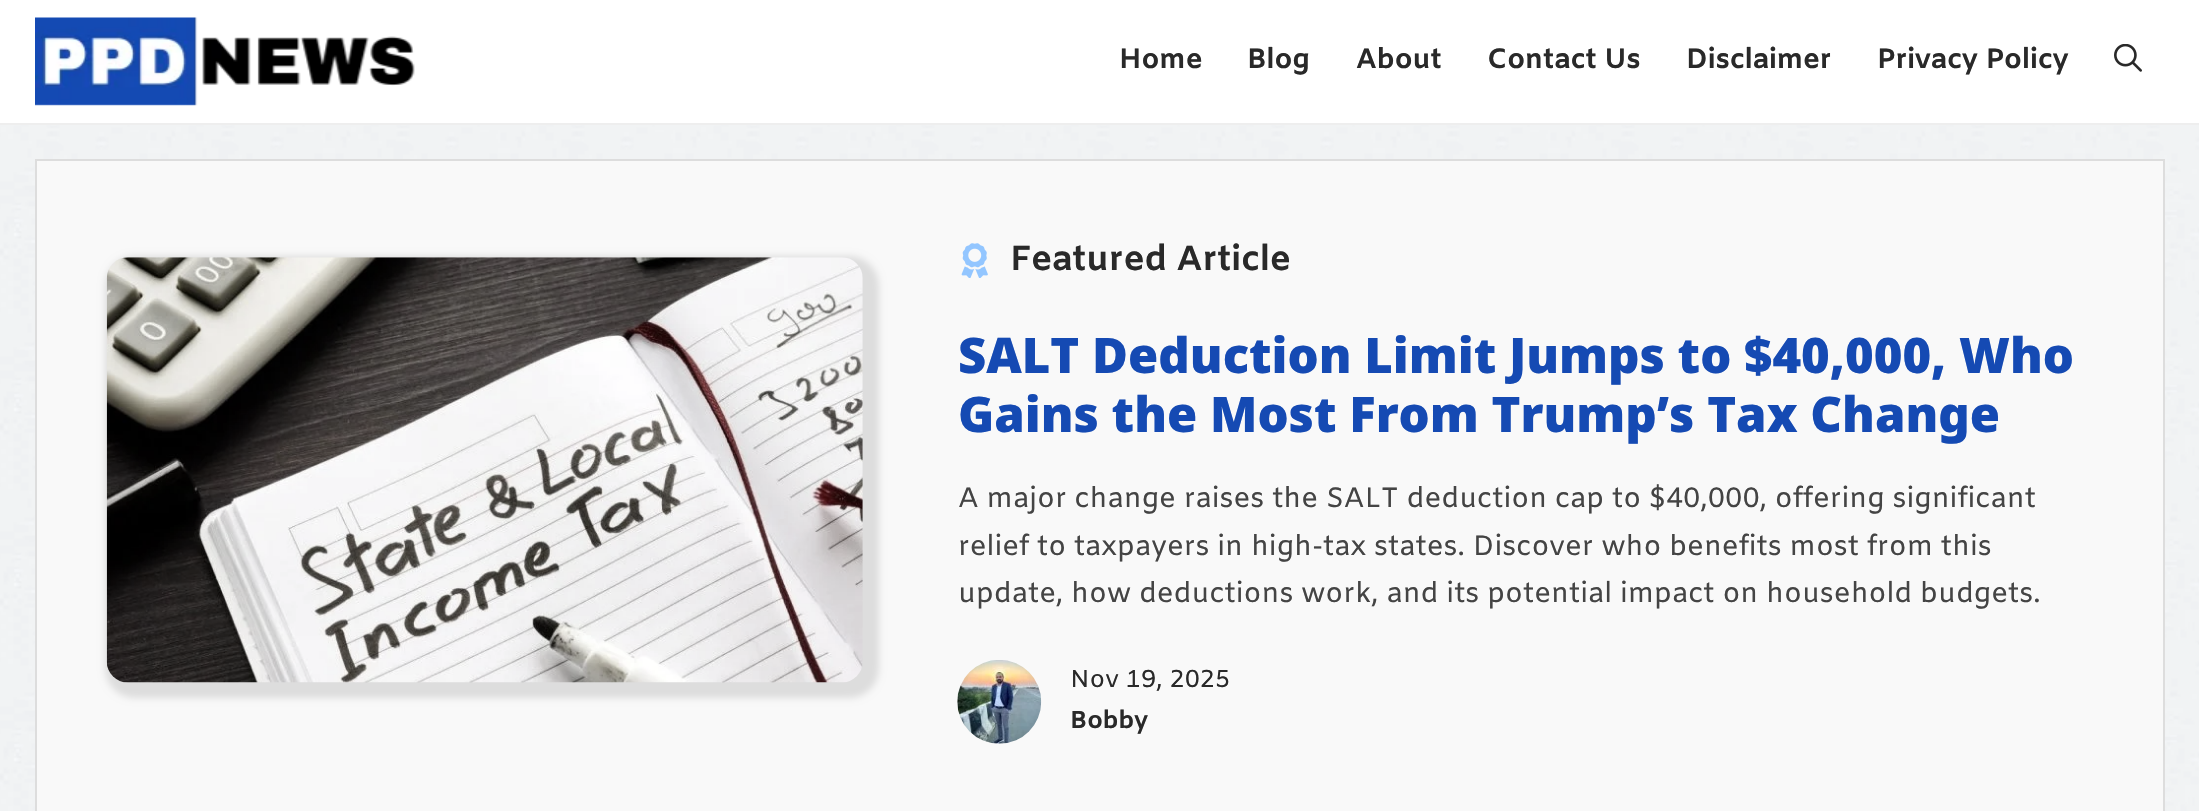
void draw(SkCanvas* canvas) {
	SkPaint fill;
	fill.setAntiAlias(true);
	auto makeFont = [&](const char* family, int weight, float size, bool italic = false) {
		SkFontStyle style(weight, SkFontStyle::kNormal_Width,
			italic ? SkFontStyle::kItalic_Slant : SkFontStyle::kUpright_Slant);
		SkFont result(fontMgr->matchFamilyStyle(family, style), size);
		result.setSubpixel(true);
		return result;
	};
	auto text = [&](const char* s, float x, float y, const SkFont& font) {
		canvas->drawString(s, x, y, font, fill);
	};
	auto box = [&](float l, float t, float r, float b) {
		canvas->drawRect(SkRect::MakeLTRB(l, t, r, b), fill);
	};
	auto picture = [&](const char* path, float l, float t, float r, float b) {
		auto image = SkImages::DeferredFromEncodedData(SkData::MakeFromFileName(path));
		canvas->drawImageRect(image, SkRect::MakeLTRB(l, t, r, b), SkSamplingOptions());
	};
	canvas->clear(0xFFFFFFFF);
	picture("image0.png", 0, 125, 2199, 811);
	fill.setColor(0xFFEEEEEE);
	box(0, 123, 2199, 125);
	picture("image1.png", 35, 17, 415, 106);
	picture("image2.png", 2114, 44, 2142, 72);
	fill.setColor(0xFFF9F9F9);
	canvas->drawRect(SkRect::MakeLTRB(36, 160, 2164, 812), fill);
	fill.setStyle(SkPaint::kStroke_Style);
	fill.setStrokeWidth(2);
	fill.setColor(0xFFDDDDDD);
	canvas->drawRect(SkRect::MakeLTRB(36, 160, 2164, 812), fill);
	fill.setStyle(SkPaint::kFill_Style);
	fill.setMaskFilter(SkMaskFilter::MakeBlur(kNormal_SkBlurStyle, 3.5f));
	canvas->drawRoundRect(SkRect::MakeLTRB(105, 256, 879, 698), 30, 30, fill);
	fill.setMaskFilter(nullptr);
	picture("image3.png", 106, 257, 863, 683);
	picture("image4.png", 961, 243, 988, 278);
	picture("image5.png", 957, 660, 1042, 744);
	auto font1 = makeFont("Amiko", 700, 28);
	fill.setColor(0xFF292929);
	text("Home", 1119, 68, font1);
	text("Blog", 1247, 68, font1);
	text("About", 1356, 68, font1);
	text("Contact Us", 1487, 68, font1);
	text("Disclaimer", 1686, 68, font1);
	text("Privacy Policy", 1877, 68, font1);
	auto font2 = makeFont("Amiko", 700, 35);
	text("Featured Article", 1010, 270, font2);
	auto font3 = makeFont("Noto Sans", 900, 49);
	fill.setColor(0xFF154AB3);
	text("SALT Deduction Limit Jumps to $40,000, Who", 958, 373, font3);
	text("Gains the Most From Trump’s Tax Change", 958, 432, font3);
	auto font4 = makeFont("Amiko", 400, 28);
	fill.setColor(0xFF444444);
	text("A major change raises the SALT deduction cap to $40,000, offering significant", 958, 507, font4);
	text("relief to taxpayers in high-tax states. Discover who benefits most from this", 958, 555, font4);
	text("update, how deductions work, and its potential impact on household budgets.", 958, 602, font4);
	auto font5 = makeFont("Amiko", 400, 24.5f);
	fill.setColor(0xFF292929);
	text("Nov 19, 2025", 1070, 687, font5);
	auto font6 = makeFont("Amiko", 700, 24.5f);
	text("Bobby", 1070, 728, font6);
}
